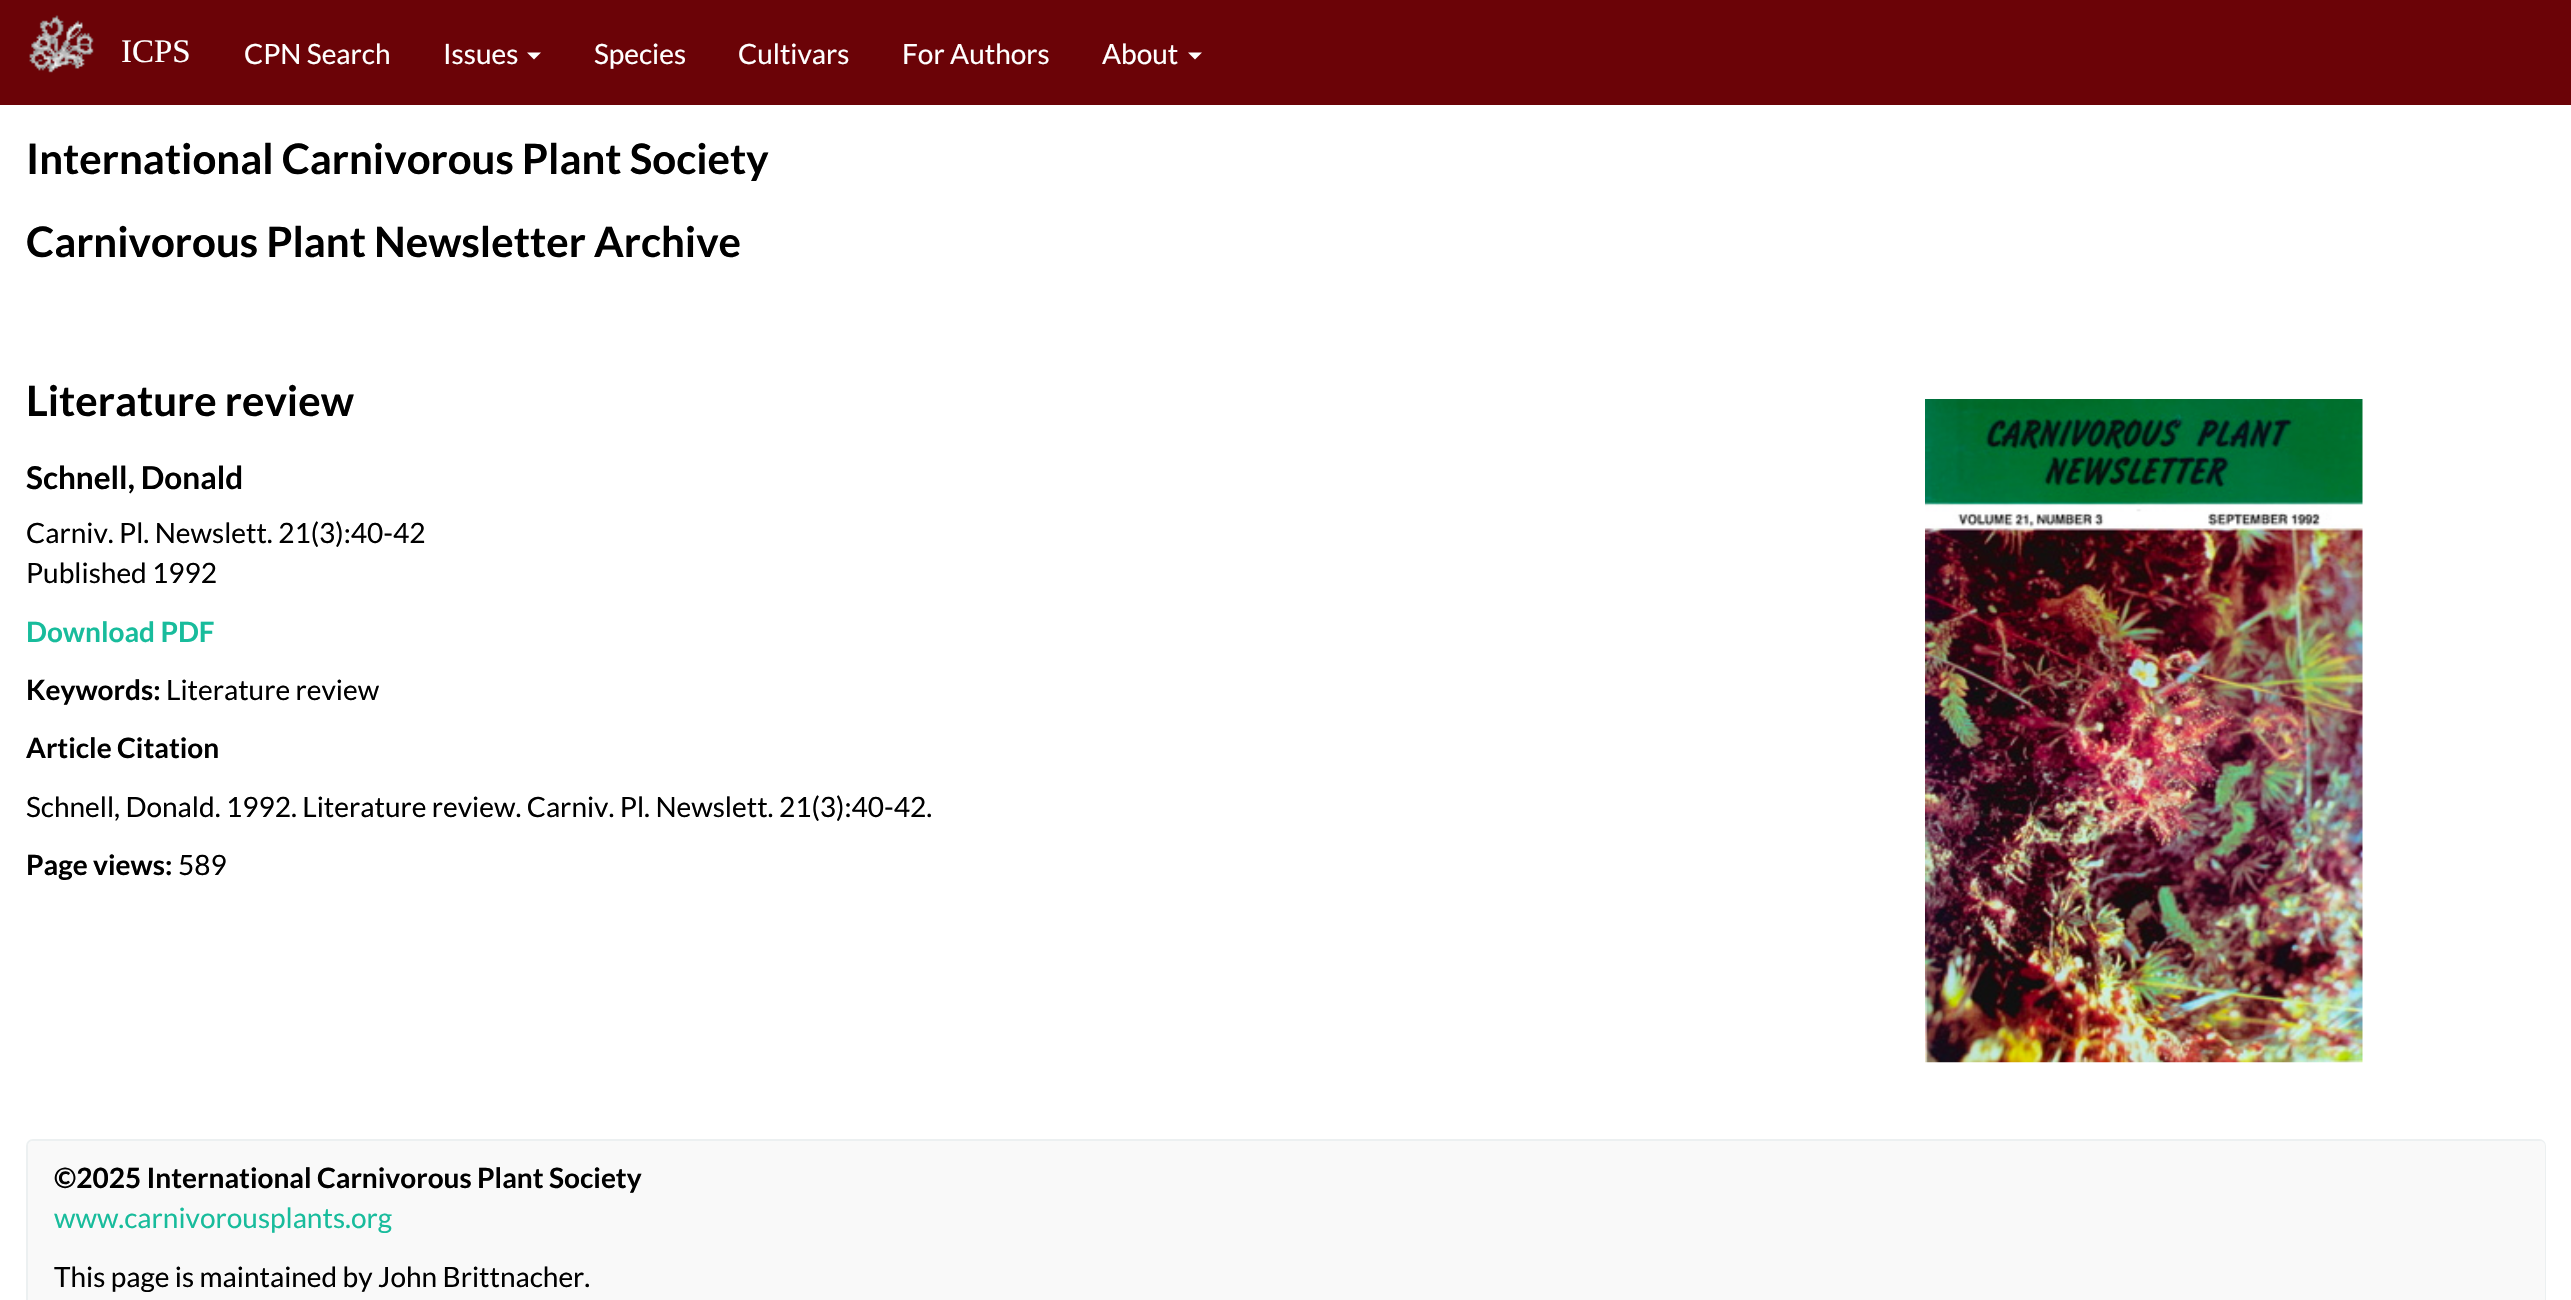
void draw(SkCanvas* canvas) {
	SkPaint fill;
	fill.setAntiAlias(true);
	auto makeFont = [&](const char* family, int weight, float size, bool italic = false) {
		SkFontStyle style(weight, SkFontStyle::kNormal_Width,
			italic ? SkFontStyle::kItalic_Slant : SkFontStyle::kUpright_Slant);
		SkFont result(fontMgr->matchFamilyStyle(family, style), size);
		result.setSubpixel(true);
		return result;
	};
	auto text = [&](const char* s, float x, float y, const SkFont& font) {
		canvas->drawString(s, x, y, font, fill);
	};
	auto box = [&](float l, float t, float r, float b) {
		canvas->drawRect(SkRect::MakeLTRB(l, t, r, b), fill);
	};
	auto picture = [&](const char* path, float l, float t, float r, float b) {
		auto image = SkImages::DeferredFromEncodedData(SkData::MakeFromFileName(path));
		canvas->drawImageRect(image, SkRect::MakeLTRB(l, t, r, b), SkSamplingOptions());
	};
	canvas->clear(0xFFFFFFFF);
	fill.setColor(0xFF6B0307);
	box(0, 0, 2571, 105);
	picture("image0.png", 29, 15, 94, 73);
	fill.setColor(0xFFFFFFFF);
	canvas->drawPath(SkPathBuilder().moveTo(527, 52.5f).lineTo(541, 52.5f).lineTo(534, 59.5f).close().detach(), fill);
	canvas->drawPath(SkPathBuilder().moveTo(1188, 52.5f).lineTo(1202, 52.5f).lineTo(1195, 59.5f).close().detach(), fill);
	picture("image1.png", 1925, 399, 2363, 1063);
	fill.setStyle(SkPaint::kStroke_Style);
	fill.setStrokeWidth(2);
	fill.setColor(0xFFECF0F1);
	canvas->drawRoundRect(SkRect::MakeLTRB(27, 1140, 2545, 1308), 6, 6, fill);
	fill.setStyle(SkPaint::kFill_Style);
	fill.setColor(0xFFF9F9F9);
	canvas->drawPath(SkPathBuilder().moveTo(33, 1141).lineTo(2540, 1141).cubicTo(2543, 1141, 2545, 1143, 2545, 1146).lineTo(2545, 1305).lineTo(28, 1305).lineTo(28, 1146).cubicTo(28, 1143, 30, 1141, 33, 1141).close().detach(), fill);
	auto font1 = makeFont("Liberation Serif", 400, 33);
	fill.setColor(0xFFFFFFFF);
	text("ICPS", 121, 62, font1);
	auto font2 = makeFont("Lato", 400, 28);
	text("CPN Search", 244, 64, font2);
	text("Issues", 443, 64, font2);
	text("Species", 594, 64, font2);
	text("Cultivars", 738, 64, font2);
	text("For Authors", 902, 64, font2);
	text("About", 1102, 64, font2);
	auto font3 = makeFont("Lato", 700, 42);
	fill.setColor(0xFF000000);
	text("International Carnivorous Plant Society", 26, 174, font3);
	text("Carnivorous Plant Newsletter Archive", 26, 257, font3);
	text("Literature review", 26, 416, font3);
	auto font4 = makeFont("Lato", 700, 31.5f);
	text("Schnell, Donald", 26, 489, font4);
	text("Carniv. Pl. Newslett. 21(3):40-42", 26, 543, font2);
	text("Published 1992", 26, 583, font2);
	auto font5 = makeFont("Lato", 700, 28);
	fill.setColor(0xFF18BC9C);
	text("Download PDF", 26, 642, font5);
	fill.setColor(0xFF000000);
	text("Keywords:", 26, 700, font5);
	text("Literature review", 166, 700, font2);
	text("Article Citation", 26, 758, font5);
	text("Schnell, Donald. 1992. Literature review. Carniv. Pl. Newslett. 21(3):40-42.", 26, 817, font2);
	text("Page views:", 26, 875, font5);
	text("589", 178, 875, font2);
	text("©2025 International Carnivorous Plant Society", 54, 1188, font5);
	fill.setColor(0xFF18BC9C);
	text("www.carnivorousplants.org", 54, 1228, font2);
	fill.setColor(0xFF000000);
	text("This page is maintained by John Brittnacher.", 54, 1287, font2);
}
